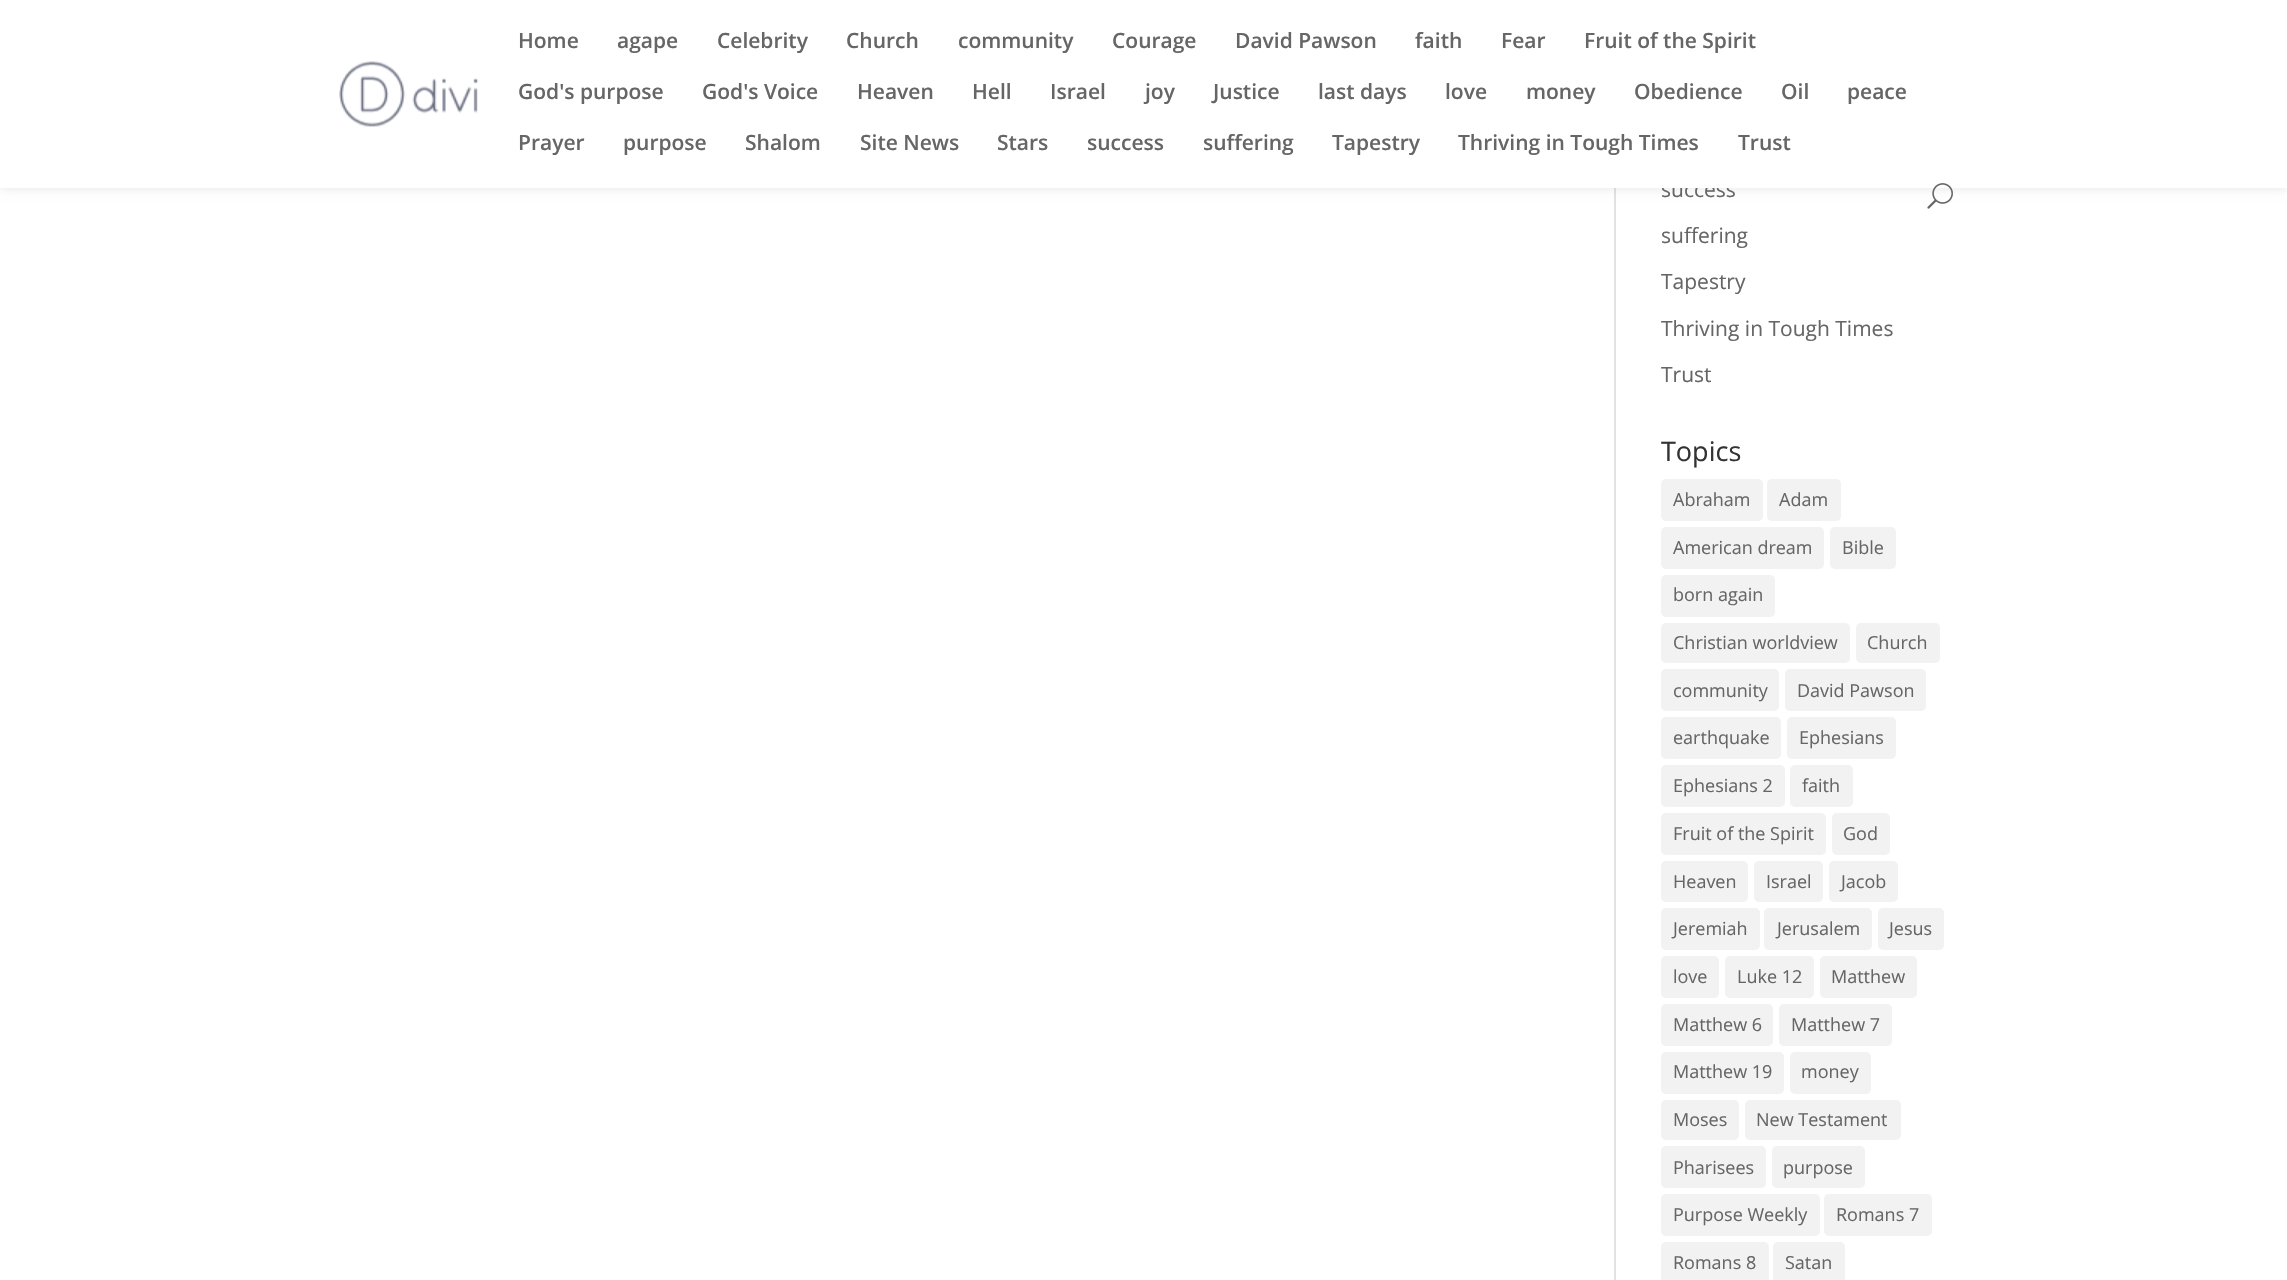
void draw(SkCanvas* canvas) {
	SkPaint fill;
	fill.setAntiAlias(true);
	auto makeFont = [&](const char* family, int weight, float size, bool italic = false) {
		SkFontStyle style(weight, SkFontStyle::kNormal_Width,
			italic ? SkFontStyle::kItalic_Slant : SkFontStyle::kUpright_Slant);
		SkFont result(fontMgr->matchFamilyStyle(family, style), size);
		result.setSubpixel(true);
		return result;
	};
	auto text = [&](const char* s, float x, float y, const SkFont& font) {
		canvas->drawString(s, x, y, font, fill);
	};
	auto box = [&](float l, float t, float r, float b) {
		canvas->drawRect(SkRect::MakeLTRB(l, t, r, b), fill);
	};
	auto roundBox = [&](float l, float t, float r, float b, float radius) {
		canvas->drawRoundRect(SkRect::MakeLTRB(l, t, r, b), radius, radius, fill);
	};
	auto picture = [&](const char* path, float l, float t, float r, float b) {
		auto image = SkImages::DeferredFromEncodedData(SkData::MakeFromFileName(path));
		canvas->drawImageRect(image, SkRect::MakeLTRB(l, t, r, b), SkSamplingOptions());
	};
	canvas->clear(0xFFFFFFFF);
	fill.setColor(0xFFE2E2E2);
	box(1614, 188, 1616, 1280);
	fill.setColor(0x1A000000);
	fill.setMaskFilter(SkMaskFilter::MakeBlur(kNormal_SkBlurStyle, 5));
	canvas->drawRect(SkRect::MakeLTRB(0, 0, 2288, 188), fill);
	fill.setMaskFilter(nullptr);
	fill.setColor(0xFFF2F2F2);
	roundBox(1661, 479, 1763, 521, 5);
	roundBox(1767, 479, 1841, 521, 5);
	roundBox(1661, 527, 1824, 569, 5);
	roundBox(1830, 527, 1896, 569, 5);
	roundBox(1661, 575, 1775, 617, 5);
	roundBox(1661, 623, 1850, 663, 5);
	roundBox(1856, 623, 1940, 663, 5);
	roundBox(1661, 669, 1779, 711, 5);
	roundBox(1785, 669, 1926, 711, 5);
	roundBox(1661, 717, 1781, 759, 5);
	roundBox(1787, 717, 1896, 759, 5);
	roundBox(1661, 765, 1785, 807, 5);
	roundBox(1790, 765, 1853, 807, 5);
	roundBox(1661, 813, 1826, 855, 5);
	roundBox(1832, 813, 1890, 855, 5);
	roundBox(1661, 861, 1748, 902, 5);
	roundBox(1754, 861, 1823, 902, 5);
	roundBox(1829, 861, 1898, 902, 5);
	roundBox(1661, 908, 1760, 950, 5);
	roundBox(1764, 908, 1872, 950, 5);
	roundBox(1878, 908, 1944, 950, 5);
	roundBox(1661, 956, 1719, 998, 5);
	roundBox(1725, 956, 1814, 998, 5);
	roundBox(1820, 956, 1917, 998, 5);
	roundBox(1661, 1004, 1773, 1046, 5);
	roundBox(1779, 1004, 1892, 1046, 5);
	roundBox(1661, 1052, 1784, 1094, 5);
	roundBox(1790, 1052, 1871, 1094, 5);
	roundBox(1661, 1100, 1739, 1140, 5);
	roundBox(1745, 1100, 1901, 1140, 5);
	roundBox(1661, 1146, 1766, 1188, 5);
	roundBox(1772, 1146, 1865, 1188, 5);
	roundBox(1661, 1194, 1820, 1236, 5);
	roundBox(1824, 1194, 1932, 1236, 5);
	roundBox(1661, 1242, 1769, 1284, 5);
	roundBox(1773, 1242, 1845, 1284, 5);
	auto font1 = makeFont("Open Sans", 400, 21);
	fill.setColor(0xFF666666);
	text("success", 1661, 197, font1);
	fill.setColor(0xFFFFFFFF);
	box(0, 0, 2287, 188);
	picture("image1.png", 1927, 183, 1953, 209);
	auto font2 = makeFont("Open Sans", 600, 21);
	fill.setColor(0xFF666666);
	text("Trust", 1738, 150, font2);
	text("Thriving in Tough Times", 1458, 150, font2);
	text("Tapestry", 1332, 150, font2);
	text("suffering", 1203, 150, font2);
	text("success", 1087, 150, font2);
	text("Stars", 997, 150, font2);
	text("Site News", 860, 150, font2);
	text("Shalom", 745, 150, font2);
	text("purpose", 623, 150, font2);
	text("Prayer", 518, 150, font2);
	text("peace", 1847, 99, font2);
	text("Oil", 1781, 99, font2);
	text("Obedience", 1634, 99, font2);
	text("money", 1526, 99, font2);
	text("love", 1445, 99, font2);
	text("last days", 1318, 99, font2);
	text("Justice", 1213, 99, font2);
	text("joy", 1145, 99, font2);
	text("Israel", 1050, 99, font2);
	text("Hell", 972, 99, font2);
	text("Heaven", 857, 99, font2);
	text("God's Voice", 702, 99, font2);
	text("God's purpose", 518, 99, font2);
	text("Fruit of the Spirit", 1584, 48, font2);
	text("Fear", 1501, 48, font2);
	text("faith", 1415, 48, font2);
	text("David Pawson", 1235, 48, font2);
	text("Courage", 1112, 48, font2);
	text("community", 958, 48, font2);
	text("Church", 846, 48, font2);
	text("Celebrity", 717, 48, font2);
	text("agape", 617, 48, font2);
	text("Home", 518, 48, font2);
	picture("image0.png", 339, 61, 479, 127);
	text("suffering", 1661, 243, font1);
	text("Tapestry", 1661, 289, font1);
	text("Thriving in Tough Times", 1661, 336, font1);
	text("Trust", 1661, 382, font1);
	auto font3 = makeFont("Open Sans", 400, 27);
	fill.setColor(0xFF333333);
	text("Topics", 1661, 461, font3);
	auto font4 = makeFont("Open Sans", 400, 18);
	fill.setColor(0xFF666666);
	text("Abraham", 1673, 506, font4);
	text("Adam", 1779, 506, font4);
	text("American dream", 1673, 554, font4);
	text("Bible", 1842, 554, font4);
	text("born again", 1673, 601, font4);
	text("Christian worldview", 1673, 649, font4);
	text("Church", 1867, 649, font4);
	text("community", 1673, 697, font4);
	text("David Pawson", 1797, 697, font4);
	text("earthquake", 1673, 744, font4);
	text("Ephesians", 1799, 744, font4);
	text("Ephesians 2", 1673, 792, font4);
	text("faith", 1802, 792, font4);
	text("Fruit of the Spirit", 1673, 840, font4);
	text("God", 1843, 840, font4);
	text("Heaven", 1673, 888, font4);
	text("Israel", 1766, 888, font4);
	text("Jacob", 1841, 888, font4);
	text("Jeremiah", 1673, 935, font4);
	text("Jerusalem", 1777, 935, font4);
	text("Jesus", 1889, 935, font4);
	text("love", 1673, 983, font4);
	text("Luke 12", 1737, 983, font4);
	text("Matthew", 1831, 983, font4);
	text("Matthew 6", 1673, 1031, font4);
	text("Matthew 7", 1791, 1031, font4);
	text("Matthew 19", 1673, 1078, font4);
	text("money", 1801, 1078, font4);
	text("Moses", 1673, 1126, font4);
	text("New Testament", 1756, 1126, font4);
	text("Pharisees", 1673, 1174, font4);
	text("purpose", 1783, 1174, font4);
	text("Purpose Weekly", 1673, 1221, font4);
	text("Romans 7", 1836, 1221, font4);
	text("Romans 8", 1673, 1269, font4);
	text("Satan", 1785, 1269, font4);
}
